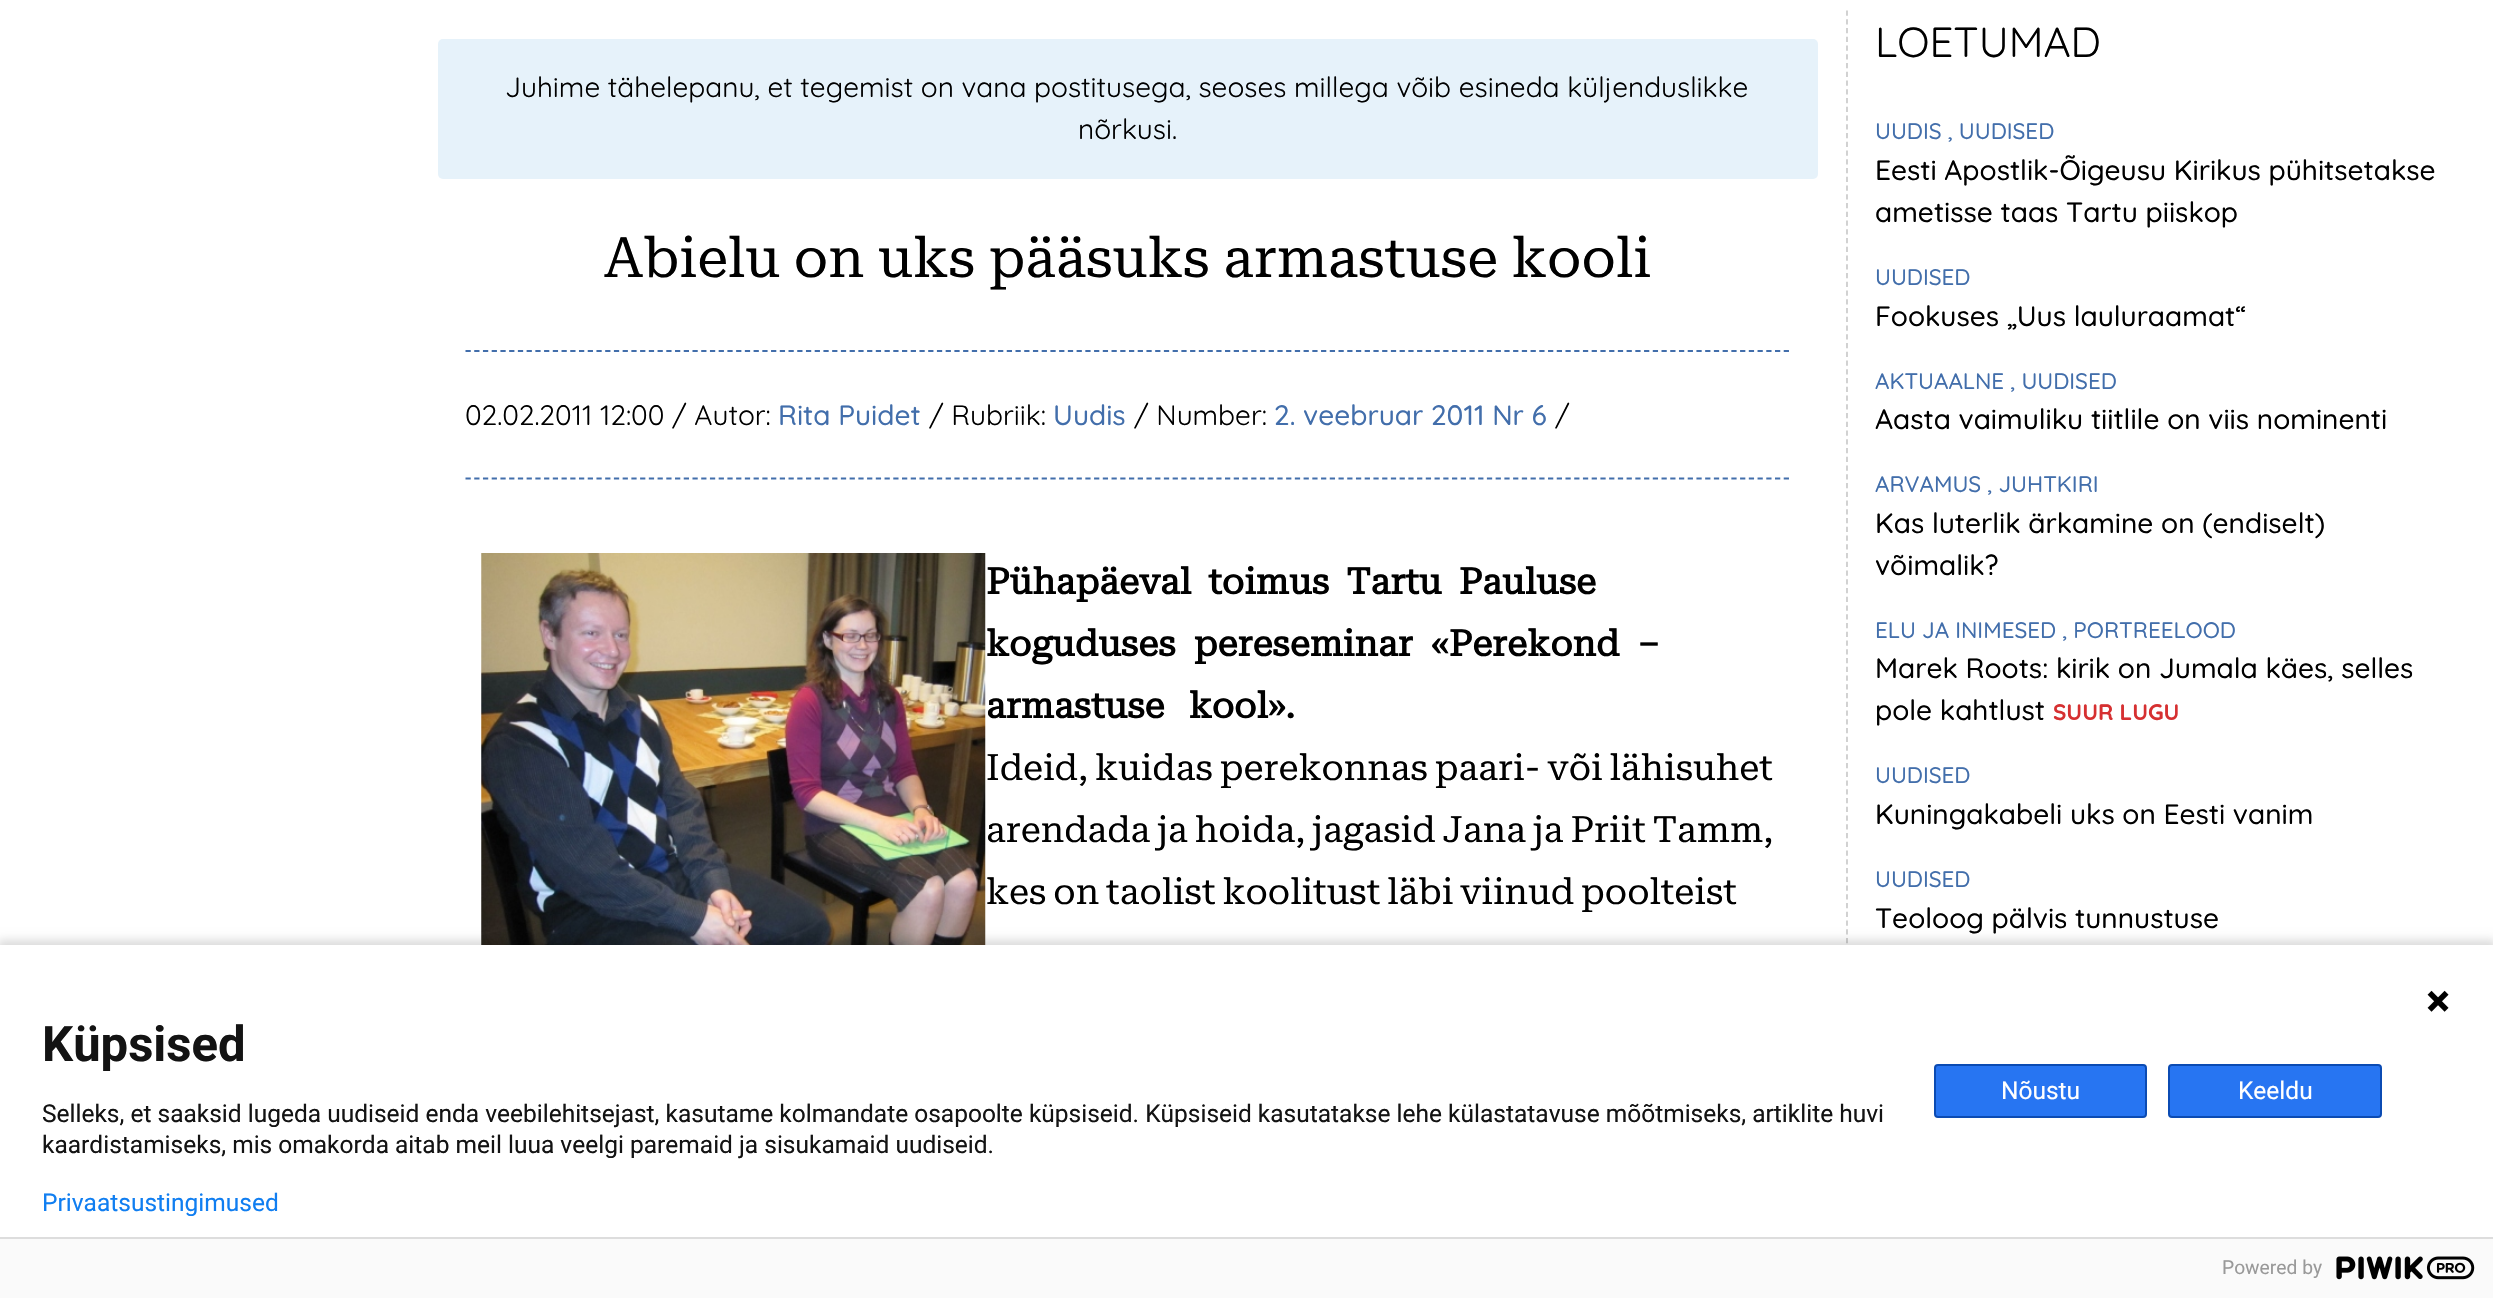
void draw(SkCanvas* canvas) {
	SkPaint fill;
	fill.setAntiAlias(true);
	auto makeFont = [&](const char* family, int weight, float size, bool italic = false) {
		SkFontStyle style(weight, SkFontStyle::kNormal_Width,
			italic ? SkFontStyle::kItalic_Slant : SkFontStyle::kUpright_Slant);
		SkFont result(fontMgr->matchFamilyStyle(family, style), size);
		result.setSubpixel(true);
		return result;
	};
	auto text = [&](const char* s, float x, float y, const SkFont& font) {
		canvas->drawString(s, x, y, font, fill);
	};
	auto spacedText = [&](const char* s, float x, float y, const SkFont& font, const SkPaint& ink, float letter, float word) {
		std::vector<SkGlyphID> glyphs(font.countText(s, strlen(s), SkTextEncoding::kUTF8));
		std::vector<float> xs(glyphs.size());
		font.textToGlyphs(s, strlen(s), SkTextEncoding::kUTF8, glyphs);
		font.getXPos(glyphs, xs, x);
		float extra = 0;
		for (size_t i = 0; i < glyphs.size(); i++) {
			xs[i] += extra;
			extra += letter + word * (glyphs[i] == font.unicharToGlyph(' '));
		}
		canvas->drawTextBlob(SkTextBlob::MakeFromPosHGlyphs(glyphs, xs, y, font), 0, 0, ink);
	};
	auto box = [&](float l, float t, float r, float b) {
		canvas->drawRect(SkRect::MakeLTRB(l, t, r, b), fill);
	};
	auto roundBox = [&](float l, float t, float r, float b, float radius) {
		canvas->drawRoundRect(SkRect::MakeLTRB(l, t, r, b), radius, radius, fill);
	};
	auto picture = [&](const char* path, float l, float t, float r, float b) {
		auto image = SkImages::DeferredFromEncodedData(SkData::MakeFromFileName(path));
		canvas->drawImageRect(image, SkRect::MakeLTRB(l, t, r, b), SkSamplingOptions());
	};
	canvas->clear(0xFFFFFFFF);
	fill.setColor(0xFFE6F2FA);
	roundBox(438, 39, 1818, 179, 5);
	fill.setStyle(SkPaint::kStroke_Style);
	fill.setStrokeWidth(1.8f);
	fill.setColor(0xFF426EAB);
	fill.setPathEffect(SkDashPathEffect::Make({{5.25f, 3.48f}}, 0));
	canvas->drawPath(SkPathBuilder().moveTo(465.5f, 351).lineTo(1790, 351).detach(), fill);
	fill.setPathEffect(nullptr);
	fill.setPathEffect(SkDashPathEffect::Make({{5.25f, 3.48f}}, 0));
	canvas->drawPath(SkPathBuilder().moveTo(465.5f, 478.5f).lineTo(1790, 478.5f).detach(), fill);
	fill.setPathEffect(nullptr);
	picture("image0.png", 481, 553, 986, 945);
	fill.setColor(0xFFCDCDCD);
	fill.setPathEffect(SkDashPathEffect::Make({{5.25f, 3.5f}}, 0));
	canvas->drawPath(SkPathBuilder().moveTo(1847, 10.5f).lineTo(1847, 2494).detach(), fill);
	fill.setPathEffect(nullptr);
	fill.setStyle(SkPaint::kFill_Style);
	fill.setColor(0x24000000);
	fill.setMaskFilter(SkMaskFilter::MakeBlur(kNormal_SkBlurStyle, 4.5f));
	canvas->drawRect(SkRect::MakeLTRB(-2, 940, 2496, 1297), fill);
	fill.setMaskFilter(nullptr);
	fill.setColor(0xFFFFFFFF);
	box(0, 945, 2493, 1237);
	picture("image1.png", 2427, 990, 2449, 1012);
	fill.setColor(0xFF2775F2);
	canvas->drawRoundRect(SkRect::MakeLTRB(1935, 1065, 2146, 1117), 3, 3, fill);
	fill.setStyle(SkPaint::kStroke_Style);
	fill.setStrokeWidth(2);
	fill.setColor(0xFF0B4BB3);
	canvas->drawRoundRect(SkRect::MakeLTRB(1935, 1065, 2146, 1117), 3, 3, fill);
	fill.setStyle(SkPaint::kFill_Style);
	fill.setColor(0xFF2775F2);
	canvas->drawRoundRect(SkRect::MakeLTRB(2169, 1065, 2381, 1117), 3, 3, fill);
	fill.setStyle(SkPaint::kStroke_Style);
	fill.setColor(0xFF0B4BB3);
	canvas->drawRoundRect(SkRect::MakeLTRB(2169, 1065, 2381, 1117), 3, 3, fill);
	fill.setStyle(SkPaint::kFill_Style);
	fill.setColor(0xFFFAFAFA);
	box(0, 1239, 2493, 1298);
	fill.setColor(0xFFDDDDDD);
	box(0, 1237, 2493, 1239);
	picture("image2.png", 2336, 1256, 2475, 1280);
	auto font1 = makeFont("Quicksand", 400, 28);
	fill.setColor(0xFF000000);
	text("Juhime tähelepanu, et tegemist on vana postitusega, seoses millega võib esineda küljenduslikke", 505, 97, font1);
	text("nõrkusi.", 1078, 139, font1);
	auto font2 = makeFont("Roboto Serif", 400, 56);
	spacedText("Abielu on uks pääsuks armastuse kooli", 604, 277, font2, fill, 0, -0.5f);
	text("02.02.2011 12:00 / Autor:", 465, 425, font1);
	auto font3 = makeFont("Quicksand", 500, 28);
	fill.setColor(0xFF426EAB);
	text("Rita Puidet", 778, 425, font3);
	fill.setColor(0xFF000000);
	text("/ Rubriik:", 929, 425, font1);
	fill.setColor(0xFF426EAB);
	text("Uudis", 1053, 425, font3);
	fill.setColor(0xFF000000);
	text("/ Number:", 1134, 425, font1);
	fill.setColor(0xFF426EAB);
	text("2. veebruar 2011 Nr 6", 1274, 425, font3);
	fill.setColor(0xFF000000);
	text("/", 1555, 425, font1);
	auto font4 = makeFont("Roboto Serif", 700, 36.4f);
	spacedText("Pühapäeval toimus Tartu Pauluse", 986, 594, font4, fill, 0, 8);
	spacedText("koguduses pereseminar «Perekond –", 986, 656, font4, fill, 0, 9);
	spacedText("armastuse kool».", 986, 718, font4, fill, 0, 15);
	auto font5 = makeFont("Roboto Serif", 400, 36.4f);
	spacedText("Ideid, kuidas perekonnas paari- või lähisuhet", 986, 780, font5, fill, 0, -2.25f);
	spacedText("arendada ja hoida, jagasid Jana ja Priit Tamm,", 986, 842, font5, fill, 0, -2.25f);
	spacedText("kes on taolist koolitust läbi viinud poolteist", 986, 904, font5, fill, 0, -2.25f);
	auto font6 = makeFont("Quicksand", 400, 42);
	text("LOETUMAD", 1875, 57, font6);
	auto font7 = makeFont("Quicksand", 500, 22.4f);
	fill.setColor(0xFF426EAB);
	text("UUDIS , UUDISED", 1875, 139, font7);
	fill.setColor(0xFF000000);
	text("Eesti Apostlik-Õigeusu Kirikus pühitsetakse", 1875, 180, font3);
	text("ametisse taas Tartu piiskop", 1875, 222, font3);
	fill.setColor(0xFF426EAB);
	text("UUDISED", 1875, 285, font7);
	fill.setColor(0xFF000000);
	text("Fookuses „Uus lauluraamat“", 1875, 326, font3);
	fill.setColor(0xFF426EAB);
	text("AKTUAALNE , UUDISED", 1875, 389, font7);
	fill.setColor(0xFF000000);
	text("Aasta vaimuliku tiitlile on viis nominenti", 1875, 429, font3);
	fill.setColor(0xFF426EAB);
	text("ARVAMUS , JUHTKIRI", 1875, 492, font7);
	fill.setColor(0xFF000000);
	text("Kas luterlik ärkamine on (endiselt)", 1875, 533, font3);
	text("võimalik?", 1875, 575, font3);
	fill.setColor(0xFF426EAB);
	text("ELU JA INIMESED , PORTREELOOD", 1875, 638, font7);
	fill.setColor(0xFF000000);
	text("Marek Roots: kirik on Jumala käes, selles", 1875, 678, font3);
	text("pole kahtlust", 1875, 720, font3);
	auto font8 = makeFont("Quicksand", 700, 22.4f);
	fill.setColor(0xFFD63031);
	text("SUUR LUGU", 2053, 720, font8);
	fill.setColor(0xFF426EAB);
	text("UUDISED", 1875, 783, font7);
	fill.setColor(0xFF000000);
	text("Kuningakabeli uks on Eesti vanim", 1875, 824, font3);
	fill.setColor(0xFF426EAB);
	text("UUDISED", 1875, 887, font7);
	fill.setColor(0xFF000000);
	text("Teoloog pälvis tunnustuse", 1875, 928, font3);
	auto font9 = makeFont("Roboto", 700, 49);
	fill.setColor(0xFF131313);
	text("Küpsised", 42, 1061, font9);
	auto font10 = makeFont("Roboto", 400, 24.5f);
	text("Selleks, et saaksid lugeda uudiseid enda veebilehitsejast, kasutame kolmandate osapoolte küpsiseid. Küpsiseid kasutatakse lehe külastatavuse mõõtmiseks, artiklite huvi", 42, 1122, font10);
	text("kaardistamiseks, mis omakorda aitab meil luua veelgi paremaid ja sisukamaid uudiseid.", 42, 1153, font10);
	fill.setColor(0xFF107EF1);
	text("Privaatsustingimused", 42, 1211, font10);
	fill.setColor(0xFFFFFFFF);
	text("Nõustu", 2001, 1099, font10);
	text("Keeldu", 2238, 1099, font10);
	auto font11 = makeFont("Roboto", 400, 19.25f);
	fill.setColor(0xFF999999);
	text("Powered by", 2222, 1274, font11);
}
